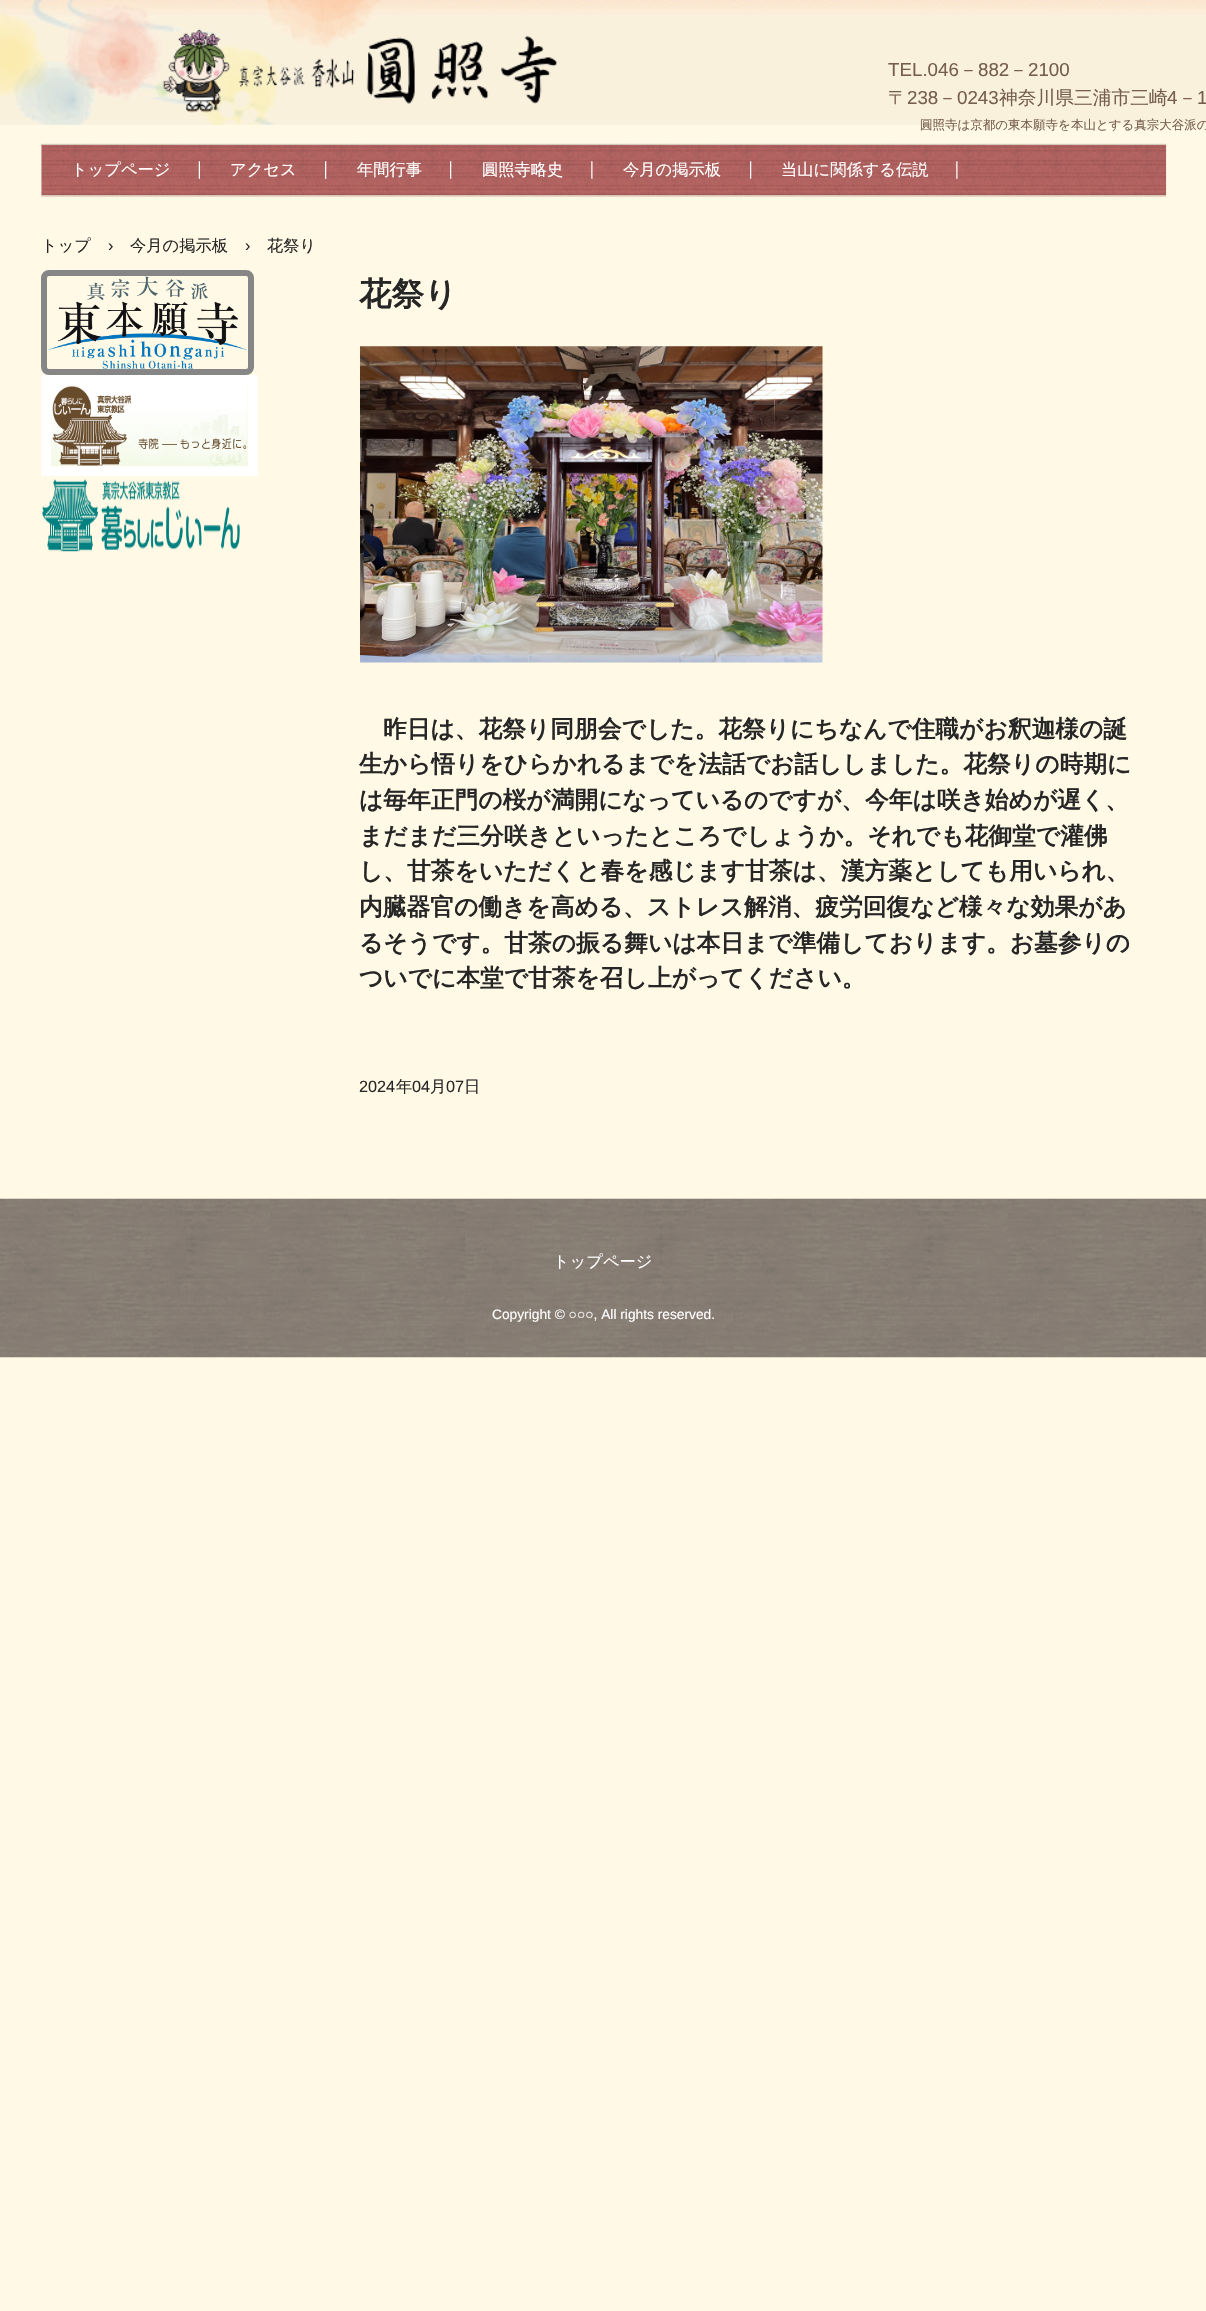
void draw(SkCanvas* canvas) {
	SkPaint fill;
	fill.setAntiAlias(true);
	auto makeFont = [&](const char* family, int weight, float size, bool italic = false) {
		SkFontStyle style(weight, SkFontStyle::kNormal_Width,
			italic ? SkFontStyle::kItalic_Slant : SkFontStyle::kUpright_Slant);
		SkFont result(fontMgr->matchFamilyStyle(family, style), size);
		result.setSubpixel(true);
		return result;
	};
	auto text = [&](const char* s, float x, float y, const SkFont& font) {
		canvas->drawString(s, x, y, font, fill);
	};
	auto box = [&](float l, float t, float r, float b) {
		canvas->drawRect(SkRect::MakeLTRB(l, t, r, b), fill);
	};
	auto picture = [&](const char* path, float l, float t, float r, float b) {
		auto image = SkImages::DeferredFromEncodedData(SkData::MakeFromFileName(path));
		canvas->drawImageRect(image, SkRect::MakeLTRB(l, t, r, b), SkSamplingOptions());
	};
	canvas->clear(0xFFFFF9E5);
	picture("image0.png", 0, 0, 1206, 125);
	picture("image1.png", 162, 28, 557, 113);
	fill.setColor(0xFFFFFFFF);
	box(41, 145, 42, 195);
	picture("image2.png", 41, 143, 1167, 197);
	fill.setColor(0xFFD2C9B8);
	box(41, 144, 1166, 145);
	box(41, 195, 1166, 196);
	picture("image3.png", 198, 161, 200, 179);
	picture("image4.png", 325, 161, 327, 179);
	picture("image5.png", 450, 161, 452, 179);
	picture("image6.png", 591, 161, 593, 179);
	picture("image7.png", 750, 161, 752, 179);
	picture("image8.png", 956, 161, 958, 179);
	fill.setStyle(SkPaint::kStroke_Style);
	fill.setStrokeWidth(6);
	fill.setColor(0xFF868686);
	canvas->drawRoundRect(SkRect::MakeLTRB(44, 273, 251, 372), 5, 5, fill);
	picture("image9.png", 48, 276, 247, 369);
	fill.setStrokeWidth(10);
	fill.setColor(0xFFFFFFFF);
	canvas->drawRect(SkRect::MakeLTRB(46, 380, 253, 471), fill);
	picture("image10.png", 51, 385, 248, 467);
	picture("image11.png", 42, 478, 240, 552);
	picture("image12.png", 360, 346, 823, 663);
	picture("image13.png", 0, 1198, 1206, 1358);
	auto font1 = makeFont("Liberation Sans", 400, 18.75f);
	fill.setStyle(SkPaint::kFill_Style);
	fill.setColor(0xFF755F4C);
	text("TEL.046", 888, 76, font1);
	auto font2 = makeFont("WenQuanYi Zen Hei", 500, 18.75f);
	text("－", 959, 76, font2);
	text("882", 978, 76, font1);
	text("－", 1009, 76, font2);
	text("2100", 1028, 76, font1);
	text("〒", 888, 104, font2);
	text("238", 907, 104, font1);
	text("－", 938, 104, font2);
	text("0243", 957, 104, font1);
	text("神奈川県三浦市三崎", 999, 104, font2);
	text("4", 1167, 104, font1);
	text("－", 1178, 104, font2);
	text("1", 1197, 104, font1);
	auto font3 = makeFont("WenQuanYi Zen Hei", 500, 12.5f);
	text("圓照寺は京都の東本願寺を本山とする真宗大谷派の", 920, 129, font3);
	auto font4 = makeFont("WenQuanYi Zen Hei", 500, 16.25f);
	fill.setColor(0xFFFFFFFF);
	text("トップページ", 71, 175, font4);
	text("アクセス", 230, 175, font4);
	text("年間行事", 357, 175, font4);
	text("圓照寺略史", 482, 175, font4);
	text("今月の掲示板", 623, 175, font4);
	text("当山に関係する伝説", 781, 175, font4);
	fill.setColor(0xFF262626);
	text("トップ", 41, 251, font4);
	auto font5 = makeFont("Liberation Sans", 400, 16.25f);
	text("›", 108, 251, font5);
	text("今月の掲示板", 130, 251, font4);
	text("›", 245, 251, font5);
	text("花祭り", 267, 251, font4);
	auto font6 = makeFont("WenQuanYi Zen Hei", 700, 32.5f);
	text("花祭り", 359, 305, font6);
	auto font7 = makeFont("WenQuanYi Zen Hei", 700, 23.75f);
	text("昨日は、花祭り同朋会でした。花祭りにちなんで住職がお釈迦様の誕", 383, 737, font7);
	text("生から悟りをひらかれるまでを法話でお話ししました。花祭りの時期に", 359, 772, font7);
	text("は毎年正門の桜が満開になっているのですが、今年は咲き始めが遅く、", 359, 808, font7);
	text("まだまだ三分咲きといったところでしょうか。それでも花御堂で灌佛", 359, 844, font7);
	text("し、甘茶をいただくと春を感じます甘茶は、漢方薬としても用いられ、", 359, 879, font7);
	text("内臓器官の働きを高める、ストレス解消、疲労回復など様々な効果があ", 359, 915, font7);
	text("るそうです。甘茶の振る舞いは本日まで準備しております。お墓参りの", 359, 951, font7);
	text("ついでに本堂で甘茶を召し上がってください。", 359, 986, font7);
	text("2024", 359, 1092, font5);
	text("年", 396, 1092, font4);
	text("04", 412, 1092, font5);
	text("月", 430, 1092, font4);
	text("07", 446, 1092, font5);
	text("日", 464, 1092, font4);
	fill.setColor(0xFFFFFFFF);
	text("トップページ", 553, 1267, font4);
	auto font8 = makeFont("Liberation Sans", 400, 13.75f);
	text("Copyright © ○○○, All rights reserved.", 492, 1319, font8);
}
